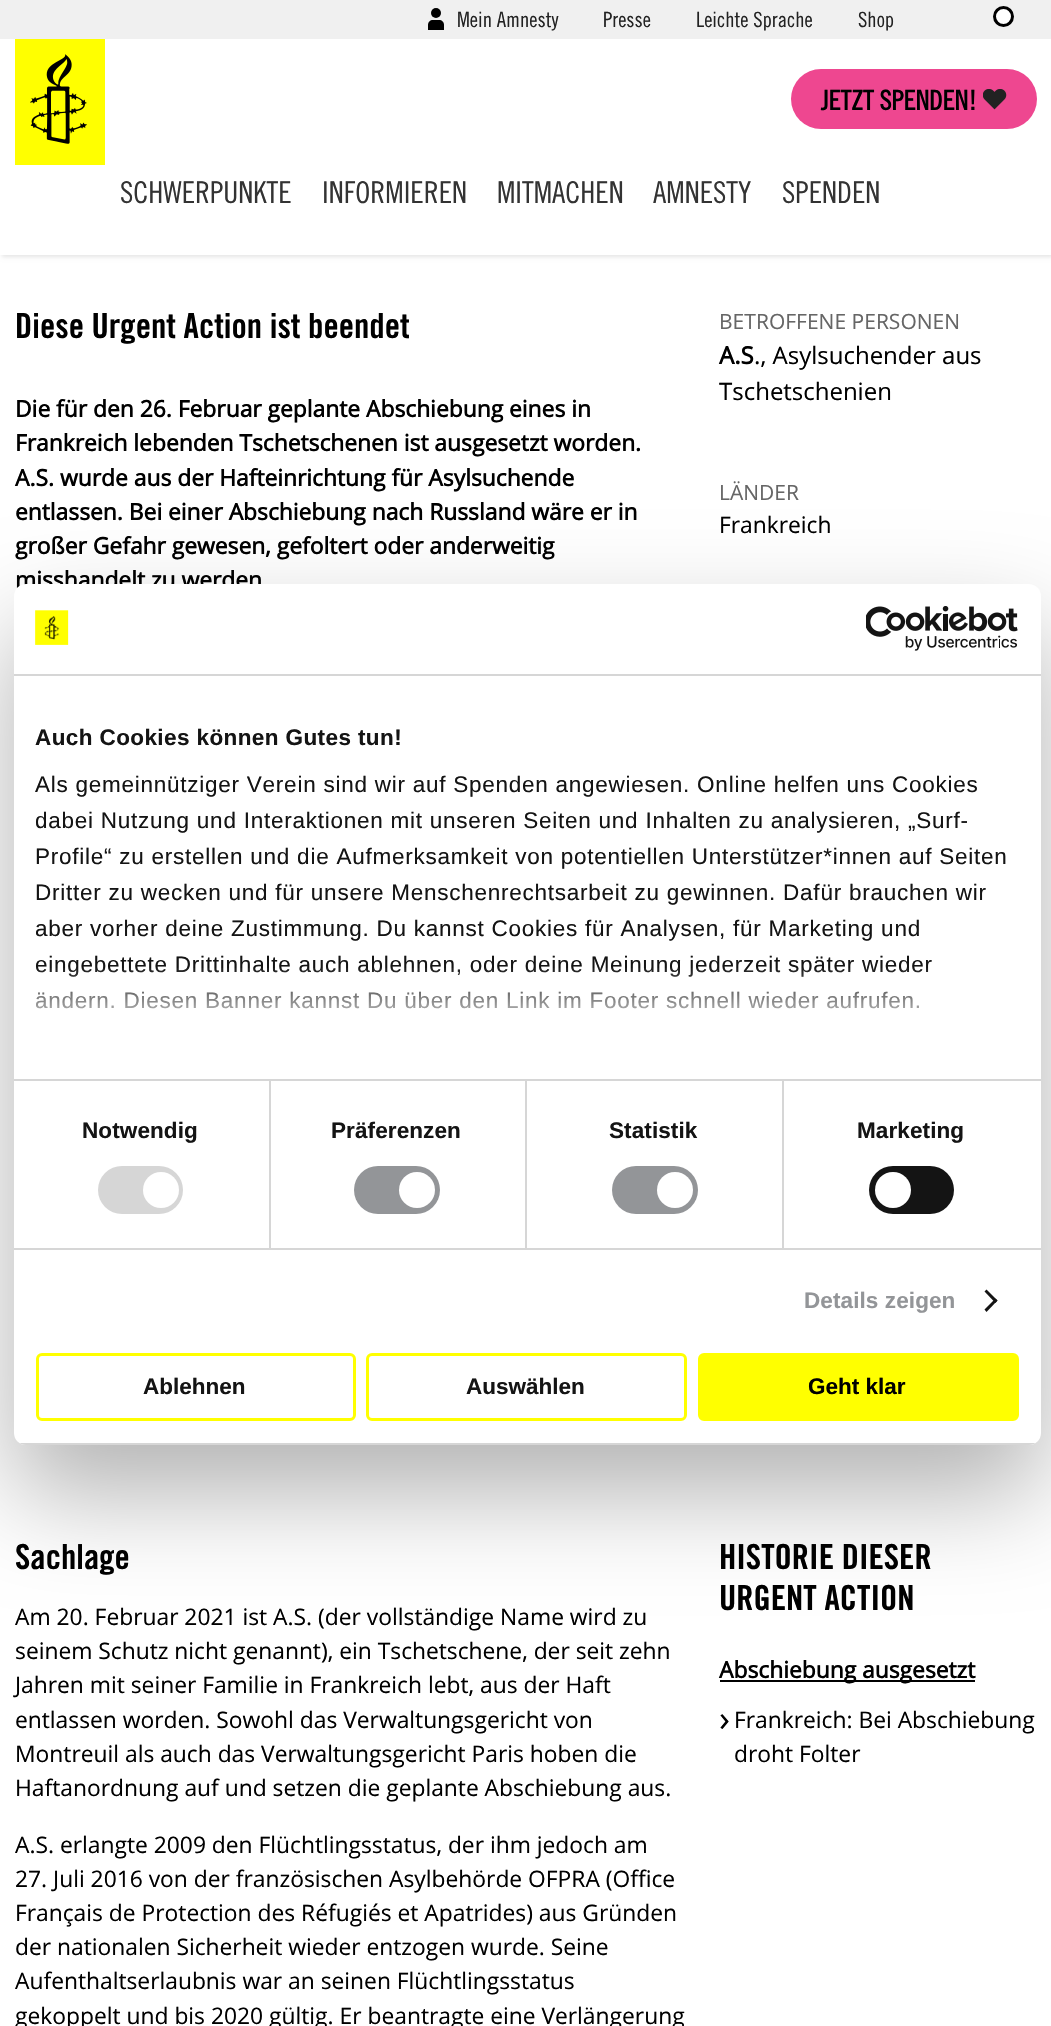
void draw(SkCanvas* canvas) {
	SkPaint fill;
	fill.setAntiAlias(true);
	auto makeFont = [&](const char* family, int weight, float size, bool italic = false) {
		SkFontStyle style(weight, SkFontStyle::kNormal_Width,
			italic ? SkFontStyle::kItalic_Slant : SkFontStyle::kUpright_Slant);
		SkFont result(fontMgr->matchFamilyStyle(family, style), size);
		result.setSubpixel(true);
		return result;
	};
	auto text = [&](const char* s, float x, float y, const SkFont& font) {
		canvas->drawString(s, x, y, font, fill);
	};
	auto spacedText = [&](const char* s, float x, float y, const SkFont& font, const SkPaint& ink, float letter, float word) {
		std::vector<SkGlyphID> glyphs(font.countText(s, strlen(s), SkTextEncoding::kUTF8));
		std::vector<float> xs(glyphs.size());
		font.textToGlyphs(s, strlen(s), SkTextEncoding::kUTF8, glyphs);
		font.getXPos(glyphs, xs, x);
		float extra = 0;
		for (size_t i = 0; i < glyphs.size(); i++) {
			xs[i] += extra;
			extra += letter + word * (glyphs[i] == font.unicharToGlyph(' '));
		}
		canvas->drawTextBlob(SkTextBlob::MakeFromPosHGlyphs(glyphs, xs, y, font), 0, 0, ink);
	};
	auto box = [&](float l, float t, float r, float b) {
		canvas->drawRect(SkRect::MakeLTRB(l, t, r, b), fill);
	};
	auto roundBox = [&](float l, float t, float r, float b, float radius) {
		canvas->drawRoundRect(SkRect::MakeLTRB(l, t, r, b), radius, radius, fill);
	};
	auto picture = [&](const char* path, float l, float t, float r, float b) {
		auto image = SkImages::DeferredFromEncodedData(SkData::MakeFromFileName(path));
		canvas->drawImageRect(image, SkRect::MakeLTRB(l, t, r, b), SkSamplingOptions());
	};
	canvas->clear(0xFFFFFFFF);
	fill.setColor(0x1A000000);
	fill.setMaskFilter(SkMaskFilter::MakeBlur(kNormal_SkBlurStyle, 2));
	canvas->drawRect(SkRect::MakeLTRB(2, 2, 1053, 257), fill);
	fill.setMaskFilter(nullptr);
	fill.setColor(0xFFFFFFFF);
	box(0, 39, 1051, 255);
	fill.setColor(0xFFF0F0F0);
	box(0, 0, 1051, 39);
	fill.setColor(0xFF000000);
	canvas->drawCircle(436, 13, 5, fill);
	canvas->drawPath(SkPathBuilder().moveTo(433, 20).lineTo(439, 20).cubicTo(442, 20, 444, 22, 444, 25).lineTo(444, 30).lineTo(428, 30).lineTo(428, 25).cubicTo(428, 22, 430, 20, 433, 20).close().detach(), fill);
	fill.setColor(0xFFFFFFFF);
	canvas->drawCircle(1003.5f, 16.5f, 9, fill);
	fill.setStyle(SkPaint::kStroke_Style);
	fill.setStrokeWidth(3);
	fill.setColor(0xFF000000);
	canvas->drawCircle(1003.5f, 16.5f, 9, fill);
	fill.setStyle(SkPaint::kFill_Style);
	fill.setColor(0xFFFFFF00);
	box(15, 39, 105, 165);
	picture("image0.png", 30, 54, 87, 144);
	fill.setColor(0xFFEE4790);
	roundBox(791, 69, 1037, 129, 30);
	picture("image1.png", 983, 89, 1007, 110);
	fill.setColor(0xFF000000);
	box(720, 1680, 975, 1682);
	fill.setColor(0x4D000000);
	fill.setMaskFilter(SkMaskFilter::MakeBlur(kNormal_SkBlurStyle, 51));
	canvas->drawRoundRect(SkRect::MakeLTRB(14, 632, 1041, 1493), 12, 12, fill);
	fill.setMaskFilter(nullptr);
	auto font1 = makeFont("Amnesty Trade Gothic", 400, 21);
	fill.setColor(0xFF222222);
	text("Mein Amnesty", 457, 27, font1);
	text("Presse", 603, 27, font1);
	text("Leichte Sprache", 696, 27, font1);
	text("Shop", 858, 27, font1);
	auto font2 = makeFont("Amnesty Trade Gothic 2", 700, 27);
	fill.setColor(0xFF000000);
	text("JETZT SPENDEN!", 821, 110, font2);
	auto font3 = makeFont("Amnesty Trade Gothic", 400, 30);
	fill.setColor(0xFF333333);
	text("SCHWERPUNKTE", 120, 203, font3);
	text("INFORMIEREN", 322, 203, font3);
	text("MITMACHEN", 497, 203, font3);
	text("AMNESTY", 653, 203, font3);
	text("SPENDEN", 782, 203, font3);
	auto font4 = makeFont("Amnesty Trade Gothic", 700, 34.5f);
	fill.setColor(0xFF000000);
	text("Diese Urgent Action ist beendet", 15, 338, font4);
	auto font5 = makeFont("Open Sans", 700, 22.8f);
	text("Die für den 26. Februar geplante Abschiebung eines in", 15, 417, font5);
	text("Frankreich lebenden Tschetschenen ist ausgesetzt worden.", 15, 451, font5);
	text("A.S. wurde aus der Hafteinrichtung für Asylsuchende", 15, 486, font5);
	text("entlassen. Bei einer Abschiebung nach Russland wäre er in", 15, 520, font5);
	text("großer Gefahr gewesen, gefoltert oder anderweitig", 15, 554, font5);
	text("misshandelt zu werden", 15, 588, font5);
	auto font6 = makeFont("Open Sans", 400, 21);
	fill.setColor(0xFF666666);
	text("BETROFFENE PERSONEN", 719, 329, font6);
	auto font7 = makeFont("Open Sans", 700, 24);
	fill.setColor(0xFF000000);
	text("A.S", 719, 364, font7);
	auto font8 = makeFont("Open Sans", 400, 24);
	text("., Asylsuchender aus", 754, 364, font8);
	text("Tschetschenien", 719, 400, font8);
	fill.setColor(0xFF666666);
	text("LÄNDER", 719, 500, font6);
	auto font9 = makeFont("Open Sans", 400, 22.8f);
	fill.setColor(0xFF000000);
	text("Frankreich", 719, 533, font9);
	text("Sachlage", 15, 1569, font4);
	text("Am 20. Februar 2021 ist A.S. (der vollständige Name wird zu", 15, 1625, font9);
	text("seinem Schutz nicht genannt), ein Tschetschene, der seit zehn", 15, 1659, font9);
	text("Jahren mit seiner Familie in Frankreich lebt, aus der Haft", 15, 1693, font9);
	text("entlassen worden. Sowohl das Verwaltungsgericht von", 15, 1728, font9);
	text("Montreuil als auch das Verwaltungsgericht Paris hoben die", 15, 1762, font9);
	text("Haftanordnung auf und setzen die geplante Abschiebung aus.", 15, 1796, font9);
	text("A.S. erlangte 2009 den Flüchtlingsstatus, der ihm jedoch am", 15, 1853, font9);
	text("27. Juli 2016 von der französischen Asylbehörde OFPRA (Office", 15, 1887, font9);
	text("Français de Protection des Réfugiés et Apatrides) aus Gründen", 15, 1921, font9);
	text("der nationalen Sicherheit wieder entzogen wurde. Seine", 15, 1955, font9);
	text("Aufenthaltserlaubnis war an seinen Flüchtlingsstatus", 15, 1989, font9);
	text("gekoppelt und bis 2020 gültig. Er beantragte eine Verlängerung", 15, 2024, font9);
	text("HISTORIE DIESER", 719, 1569, font4);
	text("URGENT ACTION", 719, 1610, font4);
	text("Abschiebung ausgesetzt", 719, 1678, font5);
	auto font10 = makeFont("Open Sans", 400, 36);
	text("›", 719, 1731, font10);
	text("Frankreich: Bei Abschiebung", 734, 1728, font9);
	text("droht Folter", 734, 1762, font9);
	fill.setColor(0xFFFFFFFF);
	roundBox(14, 584, 1041, 1445, 12);
	fill.setColor(0xFFD6D6D6);
	box(14, 674, 1041, 676);
	picture("image2.png", 35, 610, 69, 645);
	picture("image3.png", 866, 606, 1018, 651);
	auto font11 = makeFont("Liberation Sans", 700, 22.5f);
	fill.setColor(0xFF141414);
	spacedText("Auch Cookies können Gutes tun!", 35, 745, font11, fill, 0.4f, 0);
	auto font12 = makeFont("Liberation Sans", 400, 22.5f);
	spacedText("Als gemeinnütziger Verein sind wir auf Spenden angewiesen. Online helfen uns Cookies", 35, 792, font12, fill, 0.75f, 0);
	spacedText("dabei Nutzung und Interaktionen mit unseren Seiten und Inhalten zu analysieren, „Surf-", 35, 828, font12, fill, 0.75f, 0);
	spacedText("Profile“ zu erstellen und die Aufmerksamkeit von potentiellen Unterstützer*innen auf Seiten", 35, 864, font12, fill, 0.75f, 0);
	spacedText("Dritter zu wecken und für unsere Menschenrechtsarbeit zu gewinnen. Dafür brauchen wir", 35, 900, font12, fill, 0.75f, 0);
	spacedText("aber vorher deine Zustimmung. Du kannst Cookies für Analysen, für Marketing und", 35, 936, font12, fill, 0.75f, 0);
	spacedText("eingebettete Drittinhalte auch ablehnen, oder deine Meinung jederzeit später wieder", 35, 972, font12, fill, 0.75f, 0);
	spacedText("ändern. Diesen Banner kannst Du über den Link im Footer schnell wieder aufrufen.", 35, 1008, font12, fill, 0.75f, 0);
	{
		const SkColor colors[] = {0xFFFFFFFF, 0xCCFFFFFF, 0x00FFFFFF};
		const float stops[] = {0, 0.5f, 1};
		const SkPoint ends[] = {{517, 1078}, {517, 966}};
		fill.setShader(SkGradientShader::MakeLinear(ends, colors, stops, 3, SkTileMode::kClamp));
		fill.setAlpha(255);
	}
	box(35, 968, 928, 1009);
	fill.setShader(nullptr);
	fill.setColor(0xFFD6D6D6);
	box(14, 1248, 1041, 1250);
	box(269, 1080, 271, 1248);
	fill.setColor(0xFF141414);
	spacedText("Notwendig", 82, 1138, font11, fill, 0.1f, 0);
	fill.setColor(0xFFD6D6D6);
	roundBox(98, 1166, 183, 1214, 24);
	fill.setColor(0xFFFFFFFF);
	canvas->drawCircle(161, 1190, 18, fill);
	fill.setColor(0xFFD6D6D6);
	box(525, 1080, 527, 1248);
	fill.setColor(0xFF141414);
	spacedText("Präferenzen", 331, 1138, font11, fill, 0.1f, 0);
	fill.setColor(0xFF939598);
	roundBox(354, 1166, 440, 1214, 24);
	fill.setColor(0xFFFFFFFF);
	canvas->drawCircle(417, 1190, 18, fill);
	fill.setColor(0xFFD6D6D6);
	box(782, 1080, 784, 1248);
	box(14, 1079, 1041, 1081);
	fill.setColor(0xFF141414);
	spacedText("Statistik", 609, 1138, font11, fill, 0.1f, 0);
	fill.setColor(0xFF939598);
	roundBox(612, 1166, 698, 1214, 24);
	fill.setColor(0xFFFFFFFF);
	canvas->drawCircle(675, 1190, 18, fill);
	fill.setColor(0xFF141414);
	spacedText("Marketing", 857, 1138, font11, fill, 0.1f, 0);
	roundBox(869, 1166, 954, 1214, 24);
	fill.setColor(0xFFFFFFFF);
	canvas->drawCircle(893, 1190, 18, fill);
	fill.setColor(0xFF939598);
	spacedText("Details zeigen", 804, 1308, font11, fill, 0.1f, 0);
	fill.setColor(0xFF141414);
	canvas->drawPath(SkPathBuilder().moveTo(986.5f, 1289.5f).lineTo(997.5f, 1300.5f).lineTo(995.5f, 1303).lineTo(984.5f, 1291.5f).close().detach(), fill);
	canvas->drawPath(SkPathBuilder().moveTo(995.5f, 1298.5f).lineTo(997.5f, 1300.5f).lineTo(986.5f, 1312).lineTo(984.5f, 1309.5f).close().detach(), fill);
	canvas->save();
	canvas->clipPath(SkPathBuilder().moveTo(26, 584).lineTo(1029, 584).cubicTo(1035.5f, 584, 1041, 589.5f, 1041, 596).lineTo(1041, 1433).cubicTo(1041, 1439.5f, 1035.5f, 1445, 1029, 1445).lineTo(26, 1445).cubicTo(19.5f, 1445, 14, 1439.5f, 14, 1433).lineTo(14, 596).cubicTo(14, 589.5f, 19.5f, 584, 26, 584).close().detach(), true);
	fill.setColor(0xFFD6D6D6);
	box(14, 1443, 1041, 1445);
	canvas->restore();
	fill.setStyle(SkPaint::kStroke_Style);
	fill.setColor(0xFFFFFF00);
	canvas->drawRoundRect(SkRect::MakeLTRB(37.5f, 1354.5f, 354.5f, 1419.5f), 4.5f, 4.5f, fill);
	fill.setStyle(SkPaint::kFill_Style);
	fill.setColor(0xFF141414);
	text("Ablehnen", 143, 1394, font11);
	fill.setStyle(SkPaint::kStroke_Style);
	fill.setColor(0xFFFFFF00);
	canvas->drawRoundRect(SkRect::MakeLTRB(367.5f, 1354.5f, 685.5f, 1419.5f), 4.5f, 4.5f, fill);
	fill.setStyle(SkPaint::kFill_Style);
	fill.setColor(0xFF141414);
	text("Auswählen", 466, 1394, font11);
	fill.setColor(0xFFFFFF00);
	canvas->drawRoundRect(SkRect::MakeLTRB(699.5f, 1354.5f, 1017.5f, 1419.5f), 4.5f, 4.5f, fill);
	fill.setStyle(SkPaint::kStroke_Style);
	canvas->drawRoundRect(SkRect::MakeLTRB(699.5f, 1354.5f, 1017.5f, 1419.5f), 4.5f, 4.5f, fill);
	fill.setStyle(SkPaint::kFill_Style);
	fill.setColor(0xFF000000);
	text("Geht klar", 808, 1394, font11);
}
